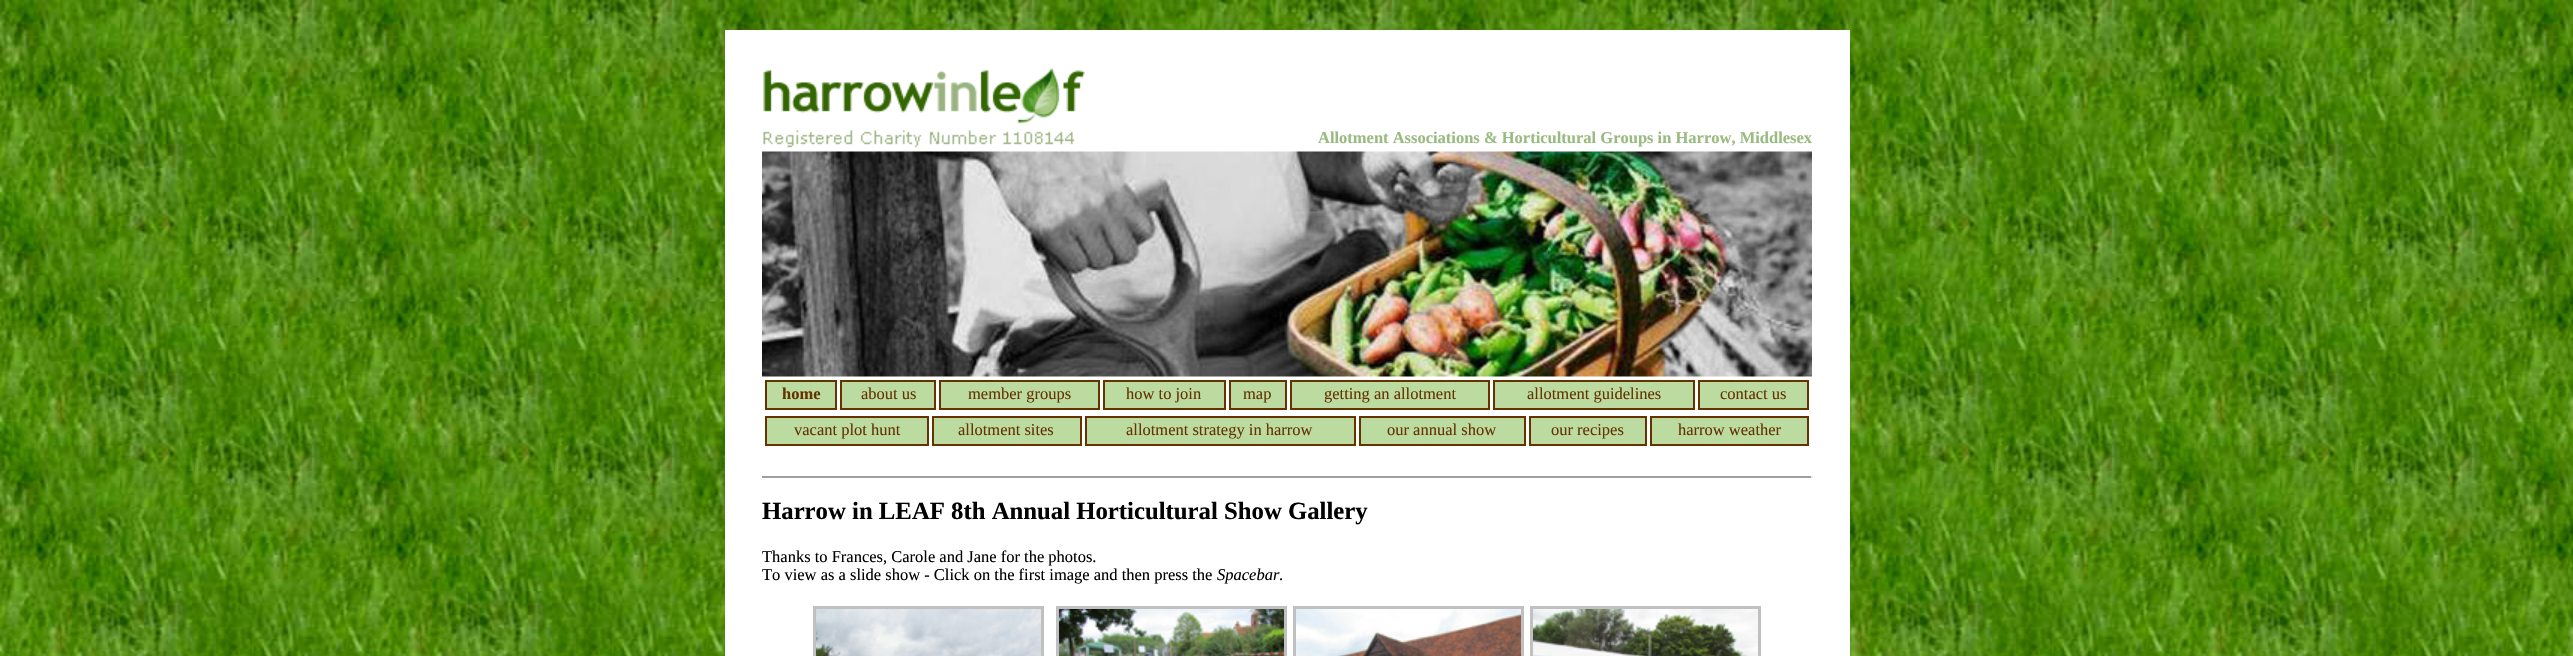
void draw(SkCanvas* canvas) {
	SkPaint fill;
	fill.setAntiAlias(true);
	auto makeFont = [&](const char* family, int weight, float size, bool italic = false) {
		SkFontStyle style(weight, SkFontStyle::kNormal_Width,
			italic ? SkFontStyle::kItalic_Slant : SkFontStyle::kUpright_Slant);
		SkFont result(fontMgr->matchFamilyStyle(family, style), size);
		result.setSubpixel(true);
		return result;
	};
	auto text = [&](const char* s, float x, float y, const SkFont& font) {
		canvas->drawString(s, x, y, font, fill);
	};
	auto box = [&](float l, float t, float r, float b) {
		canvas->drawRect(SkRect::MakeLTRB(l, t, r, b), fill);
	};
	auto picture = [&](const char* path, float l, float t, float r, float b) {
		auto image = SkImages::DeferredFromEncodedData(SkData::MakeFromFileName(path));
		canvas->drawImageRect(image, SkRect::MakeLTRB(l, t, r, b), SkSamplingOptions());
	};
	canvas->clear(0xFFFFFFFF);
	picture("image0.png", 0, 0, 2573, 656);
	fill.setColor(0xFFFFFFFF);
	box(725, 30, 1850, 656);
	picture("image1.png", 763, 67, 1085, 148);
	picture("image2.png", 762, 151, 1812, 377);
	fill.setColor(0xFFBBDBA0);
	canvas->drawRect(SkRect::MakeLTRB(766, 381, 836, 409), fill);
	fill.setStyle(SkPaint::kStroke_Style);
	fill.setStrokeWidth(2);
	fill.setColor(0xFF663300);
	canvas->drawRect(SkRect::MakeLTRB(766, 381, 836, 409), fill);
	fill.setStyle(SkPaint::kFill_Style);
	fill.setColor(0xFFBBDBA0);
	canvas->drawRect(SkRect::MakeLTRB(841, 381, 935, 409), fill);
	fill.setStyle(SkPaint::kStroke_Style);
	fill.setColor(0xFF663300);
	canvas->drawRect(SkRect::MakeLTRB(841, 381, 935, 409), fill);
	fill.setStyle(SkPaint::kFill_Style);
	fill.setColor(0xFFBBDBA0);
	canvas->drawRect(SkRect::MakeLTRB(940, 381, 1099, 409), fill);
	fill.setStyle(SkPaint::kStroke_Style);
	fill.setColor(0xFF663300);
	canvas->drawRect(SkRect::MakeLTRB(940, 381, 1099, 409), fill);
	fill.setStyle(SkPaint::kFill_Style);
	fill.setColor(0xFFBBDBA0);
	canvas->drawRect(SkRect::MakeLTRB(1104, 381, 1225, 409), fill);
	fill.setStyle(SkPaint::kStroke_Style);
	fill.setColor(0xFF663300);
	canvas->drawRect(SkRect::MakeLTRB(1104, 381, 1225, 409), fill);
	fill.setStyle(SkPaint::kFill_Style);
	fill.setColor(0xFFBBDBA0);
	canvas->drawRect(SkRect::MakeLTRB(1230, 381, 1286, 409), fill);
	fill.setStyle(SkPaint::kStroke_Style);
	fill.setColor(0xFF663300);
	canvas->drawRect(SkRect::MakeLTRB(1230, 381, 1286, 409), fill);
	fill.setStyle(SkPaint::kFill_Style);
	fill.setColor(0xFFBBDBA0);
	canvas->drawRect(SkRect::MakeLTRB(1291, 381, 1489, 409), fill);
	fill.setStyle(SkPaint::kStroke_Style);
	fill.setColor(0xFF663300);
	canvas->drawRect(SkRect::MakeLTRB(1291, 381, 1489, 409), fill);
	fill.setStyle(SkPaint::kFill_Style);
	fill.setColor(0xFFBBDBA0);
	canvas->drawRect(SkRect::MakeLTRB(1494, 381, 1694, 409), fill);
	fill.setStyle(SkPaint::kStroke_Style);
	fill.setColor(0xFF663300);
	canvas->drawRect(SkRect::MakeLTRB(1494, 381, 1694, 409), fill);
	fill.setStyle(SkPaint::kFill_Style);
	fill.setColor(0xFFBBDBA0);
	canvas->drawRect(SkRect::MakeLTRB(1699, 381, 1808, 409), fill);
	fill.setStyle(SkPaint::kStroke_Style);
	fill.setColor(0xFF663300);
	canvas->drawRect(SkRect::MakeLTRB(1699, 381, 1808, 409), fill);
	fill.setStyle(SkPaint::kFill_Style);
	fill.setColor(0xFFBBDBA0);
	canvas->drawRect(SkRect::MakeLTRB(766, 417, 928, 445), fill);
	fill.setStyle(SkPaint::kStroke_Style);
	fill.setColor(0xFF663300);
	canvas->drawRect(SkRect::MakeLTRB(766, 417, 928, 445), fill);
	fill.setStyle(SkPaint::kFill_Style);
	fill.setColor(0xFFBBDBA0);
	canvas->drawRect(SkRect::MakeLTRB(933, 417, 1081, 445), fill);
	fill.setStyle(SkPaint::kStroke_Style);
	fill.setColor(0xFF663300);
	canvas->drawRect(SkRect::MakeLTRB(933, 417, 1081, 445), fill);
	fill.setStyle(SkPaint::kFill_Style);
	fill.setColor(0xFFBBDBA0);
	canvas->drawRect(SkRect::MakeLTRB(1086, 417, 1355, 445), fill);
	fill.setStyle(SkPaint::kStroke_Style);
	fill.setColor(0xFF663300);
	canvas->drawRect(SkRect::MakeLTRB(1086, 417, 1355, 445), fill);
	fill.setStyle(SkPaint::kFill_Style);
	fill.setColor(0xFFBBDBA0);
	canvas->drawRect(SkRect::MakeLTRB(1360, 417, 1525, 445), fill);
	fill.setStyle(SkPaint::kStroke_Style);
	fill.setColor(0xFF663300);
	canvas->drawRect(SkRect::MakeLTRB(1360, 417, 1525, 445), fill);
	fill.setStyle(SkPaint::kFill_Style);
	fill.setColor(0xFFBBDBA0);
	canvas->drawRect(SkRect::MakeLTRB(1530, 417, 1646, 445), fill);
	fill.setStyle(SkPaint::kStroke_Style);
	fill.setColor(0xFF663300);
	canvas->drawRect(SkRect::MakeLTRB(1530, 417, 1646, 445), fill);
	fill.setStyle(SkPaint::kFill_Style);
	fill.setColor(0xFFBBDBA0);
	canvas->drawRect(SkRect::MakeLTRB(1651, 417, 1808, 445), fill);
	fill.setStyle(SkPaint::kStroke_Style);
	fill.setColor(0xFF663300);
	canvas->drawRect(SkRect::MakeLTRB(1651, 417, 1808, 445), fill);
	fill.setStyle(SkPaint::kFill_Style);
	fill.setColor(0xFF9F9F9F);
	box(762, 476, 1812, 478);
	fill.setColor(0xFFEEEEEE);
	box(1811, 476, 1813, 478);
	fill.setStyle(SkPaint::kStroke_Style);
	fill.setStrokeWidth(3);
	fill.setColor(0xFFC0C0C0);
	canvas->drawRect(SkRect::MakeLTRB(814.5f, 607.5f, 1042.5f, 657.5f), fill);
	picture("image3.png", 816, 609, 1041, 656);
	canvas->drawRect(SkRect::MakeLTRB(1057.5f, 607.5f, 1285.5f, 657.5f), fill);
	picture("image4.png", 1059, 609, 1284, 656);
	canvas->drawRect(SkRect::MakeLTRB(1294.5f, 607.5f, 1522.5f, 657.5f), fill);
	picture("image5.png", 1296, 609, 1521, 656);
	canvas->drawRect(SkRect::MakeLTRB(1531.5f, 607.5f, 1759.5f, 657.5f), fill);
	picture("image6.png", 1533, 609, 1758, 656);
	auto font1 = makeFont("Liberation Serif", 700, 16.5f);
	fill.setStyle(SkPaint::kFill_Style);
	fill.setColor(0xFF99BB80);
	text("Allotment Associations & Horticultural Groups in Harrow, Middlesex", 1318, 143, font1);
	fill.setColor(0xFF663300);
	text("home", 782, 399, font1);
	auto font2 = makeFont("Liberation Serif", 400, 16.5f);
	text("about us", 861, 399, font2);
	text("member groups", 968, 399, font2);
	text("how to join", 1126, 399, font2);
	text("map", 1243, 399, font2);
	text("getting an allotment", 1324, 399, font2);
	text("allotment guidelines", 1527, 399, font2);
	text("contact us", 1720, 399, font2);
	text("vacant plot hunt", 794, 435, font2);
	text("allotment sites", 958, 435, font2);
	text("allotment strategy in harrow", 1126, 435, font2);
	text("our annual show", 1387, 435, font2);
	text("our recipes", 1551, 435, font2);
	text("harrow weather", 1678, 435, font2);
	auto font3 = makeFont("Liberation Serif", 700, 24.75f);
	fill.setColor(0xFF000000);
	text("Harrow in LEAF 8th Annual Horticultural Show Gallery", 762, 519, font3);
	text("Thanks to Frances, Carole and Jane for the photos.", 762, 562, font2);
	text("To view as a slide show - Click on the first image and then press the", 762, 580, font2);
	auto font4 = makeFont("Liberation Serif", 400, 16.5f, true);
	text("Spacebar", 1217, 580, font4);
	text(".", 1279, 580, font2);
}
